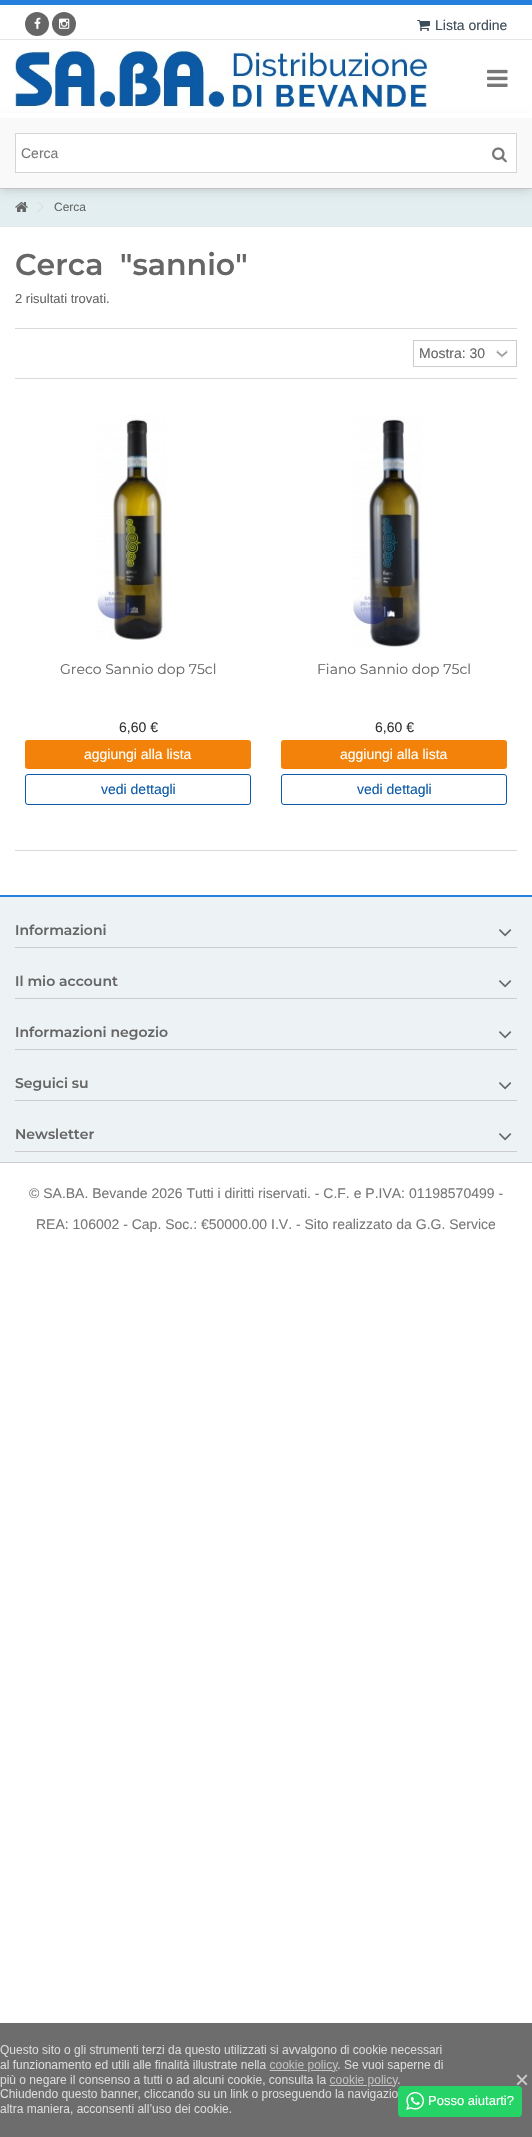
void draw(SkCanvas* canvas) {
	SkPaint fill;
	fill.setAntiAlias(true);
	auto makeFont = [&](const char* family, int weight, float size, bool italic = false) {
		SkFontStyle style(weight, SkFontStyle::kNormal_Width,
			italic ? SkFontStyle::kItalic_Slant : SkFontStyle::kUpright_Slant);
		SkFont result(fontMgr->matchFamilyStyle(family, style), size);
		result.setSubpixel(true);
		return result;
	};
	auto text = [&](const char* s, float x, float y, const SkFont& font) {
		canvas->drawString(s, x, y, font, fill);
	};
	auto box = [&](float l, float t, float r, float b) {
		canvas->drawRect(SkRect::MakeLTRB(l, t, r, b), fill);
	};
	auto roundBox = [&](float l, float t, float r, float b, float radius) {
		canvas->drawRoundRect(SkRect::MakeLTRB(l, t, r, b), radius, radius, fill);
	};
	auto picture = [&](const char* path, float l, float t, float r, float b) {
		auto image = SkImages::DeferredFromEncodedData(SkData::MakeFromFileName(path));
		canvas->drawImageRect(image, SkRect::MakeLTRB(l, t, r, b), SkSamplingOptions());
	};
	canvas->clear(0xFFFFFFFF);
	fill.setColor(0xFF257FDD);
	box(0, 0, 532, 5);
	fill.setColor(0xFFE5E5E5);
	box(0, 39, 532, 40);
	fill.setColor(0xFF666666);
	canvas->drawCircle(37, 24, 12, fill);
	picture("image0.png", 34, 17, 41, 29);
	canvas->drawCircle(64, 24, 12, fill);
	picture("image1.png", 59, 18, 70, 29);
	picture("image2.png", 417, 20, 430, 31);
	fill.setColor(0xFFD6D4D4);
	box(0, 188, 532, 189);
	fill.setColor(0xFFE2EEEF);
	box(0, 189, 532, 226);
	picture("image6.png", 15, 202, 28, 212);
	fill.setColor(0xFFDDDDDD);
	canvas->drawPath(SkPathBuilder().moveTo(38, 201).lineTo(43.5f, 206.5f).lineTo(43, 207.5f).lineTo(37.5f, 201.5f).close().detach(), fill);
	fill.setColor(0x26000000);
	fill.setMaskFilter(SkMaskFilter::MakeBlur(kNormal_SkBlurStyle, 5));
	canvas->drawRect(SkRect::MakeLTRB(0, 120, 532, 190), fill);
	fill.setMaskFilter(nullptr);
	fill.setColor(0xFFFFFFFF);
	box(0, 113, 532, 118);
	picture("image3.png", 15, 50, 427, 108);
	picture("image4.png", 487, 69, 508, 87);
	fill.setColor(0xFFF9F9F9);
	box(0, 118, 532, 188);
	fill.setColor(0xFFFFFFFF);
	canvas->drawRect(SkRect::MakeLTRB(15.5f, 133.5f, 516.5f, 172.5f), fill);
	fill.setStyle(SkPaint::kStroke_Style);
	fill.setStrokeWidth(1);
	fill.setColor(0xFFD6D4D4);
	canvas->drawRect(SkRect::MakeLTRB(15.5f, 133.5f, 516.5f, 172.5f), fill);
	picture("image5.png", 492, 147, 507, 163);
	fill.setStyle(SkPaint::kFill_Style);
	fill.setColor(0xFFE5E5E5);
	box(0, 226, 532, 227);
	fill.setColor(0xFFDDDDDD);
	canvas->drawPath(SkPathBuilder().moveTo(43, 206).lineTo(43.5f, 206.5f).lineTo(38, 212.5f).lineTo(37.5f, 211.5f).close().detach(), fill);
	fill.setColor(0xFFD9D9D9);
	box(15, 328, 517, 329);
	box(15, 378, 517, 379);
	picture("image7.png", 496, 350, 508, 358);
	fill.setStyle(SkPaint::kStroke_Style);
	fill.setColor(0xFFCCCCCC);
	canvas->drawRect(SkRect::MakeLTRB(413.5f, 340.5f, 516.5f, 366.5f), fill);
	picture("image8.png", 96, 414, 166, 640);
	fill.setStyle(SkPaint::kFill_Style);
	fill.setColor(0xFFF28209);
	roundBox(25, 740, 251, 769, 3);
	fill.setStyle(SkPaint::kStroke_Style);
	fill.setColor(0xFF0C5AA6);
	canvas->drawRoundRect(SkRect::MakeLTRB(25.5f, 774.5f, 250.5f, 804.5f), 2.5f, 2.5f, fill);
	picture("image9.png", 351, 415, 422, 647);
	fill.setStyle(SkPaint::kFill_Style);
	fill.setColor(0xFFF28209);
	roundBox(281, 740, 507, 769, 3);
	fill.setStyle(SkPaint::kStroke_Style);
	fill.setColor(0xFF0C5AA6);
	canvas->drawRoundRect(SkRect::MakeLTRB(281.5f, 774.5f, 506.5f, 804.5f), 2.5f, 2.5f, fill);
	fill.setStyle(SkPaint::kFill_Style);
	fill.setColor(0xFFD9D9D9);
	box(15, 850, 517, 851);
	fill.setColor(0xFF257FDD);
	box(0, 895, 532, 897);
	fill.setColor(0xFFEDF3F4);
	box(0, 897, 532, 1162);
	fill.setColor(0xFFCCCCCC);
	box(0, 1162, 532, 1163);
	box(15, 947, 517, 948);
	picture("image10.png", 499, 929, 512, 937);
	box(15, 998, 517, 999);
	picture("image10.png", 499, 980, 512, 988);
	box(15, 1049, 517, 1050);
	picture("image10.png", 499, 1031, 512, 1039);
	box(15, 1100, 517, 1101);
	picture("image10.png", 499, 1082, 512, 1090);
	box(15, 1151, 517, 1152);
	picture("image10.png", 499, 1133, 512, 1141);
	fill.setColor(0xFF6D6D6D);
	box(0, 2023, 532, 2137);
	picture("image12.png", 0, 2045, 528, 2115);
	fill.setColor(0xFF25D366);
	roundBox(398, 2086, 522, 2117, 4);
	picture("image11.png", 406, 2092, 424, 2110);
	auto font1 = makeFont("Liberation Sans", 400, 14);
	fill.setColor(0xFF3C4C58);
	text("Lista ordine", 435, 30, font1);
	fill.setColor(0xFF777777);
	text("Cerca", 21, 158, font1);
	auto font2 = makeFont("Liberation Sans", 400, 12);
	fill.setColor(0xFF666666);
	text("Cerca", 54, 211, font2);
	auto font3 = makeFont("Montserrat", 600, 30);
	text("Cerca", 15, 275, font3);
	text("\"sannio\"", 120, 275, font3);
	auto font4 = makeFont("Liberation Sans", 400, 13);
	text("2 risultati trovati.", 15, 303, font4);
	text("Mostra: 30", 419, 358, font1);
	auto font5 = makeFont("Montserrat", 400, 14);
	text("Greco Sannio dop 75cl", 60, 674, font5);
	fill.setColor(0xFF333333);
	text("6,60 €", 119, 732, font1);
	fill.setColor(0xFFFFFFFF);
	text("aggiungi alla lista", 84, 759, font1);
	fill.setColor(0xFF0C5AA6);
	text("vedi dettagli", 101, 794, font1);
	fill.setColor(0xFF666666);
	text("Fiano Sannio dop 75cl", 317, 674, font5);
	fill.setColor(0xFF333333);
	text("6,60 €", 375, 732, font1);
	fill.setColor(0xFFFFFFFF);
	text("aggiungi alla lista", 340, 759, font1);
	fill.setColor(0xFF0C5AA6);
	text("vedi dettagli", 357, 794, font1);
	auto font6 = makeFont("Montserrat", 600, 14);
	fill.setColor(0xFF666666);
	text("Informazioni", 15, 935, font6);
	text("Il mio account", 15, 986, font6);
	text("Informazioni negozio", 15, 1037, font6);
	text("Seguici su", 15, 1088, font6);
	text("Newsletter", 15, 1139, font6);
	fill.setColor(0xFFFFFFFF);
	text("Posso aiutarti?", 428, 2105, font4);
	fill.setColor(0xFF777777);
	text("© SA.BA. Bevande 2026 Tutti i diritti riservati. - C.F. e P.IVA: 01198570499 -", 29, 1198, font1);
	text("REA: 106002 - Cap. Soc.: €50000.00 I.V. - Sito realizzato da G.G. Service", 36, 1229, font1);
}
